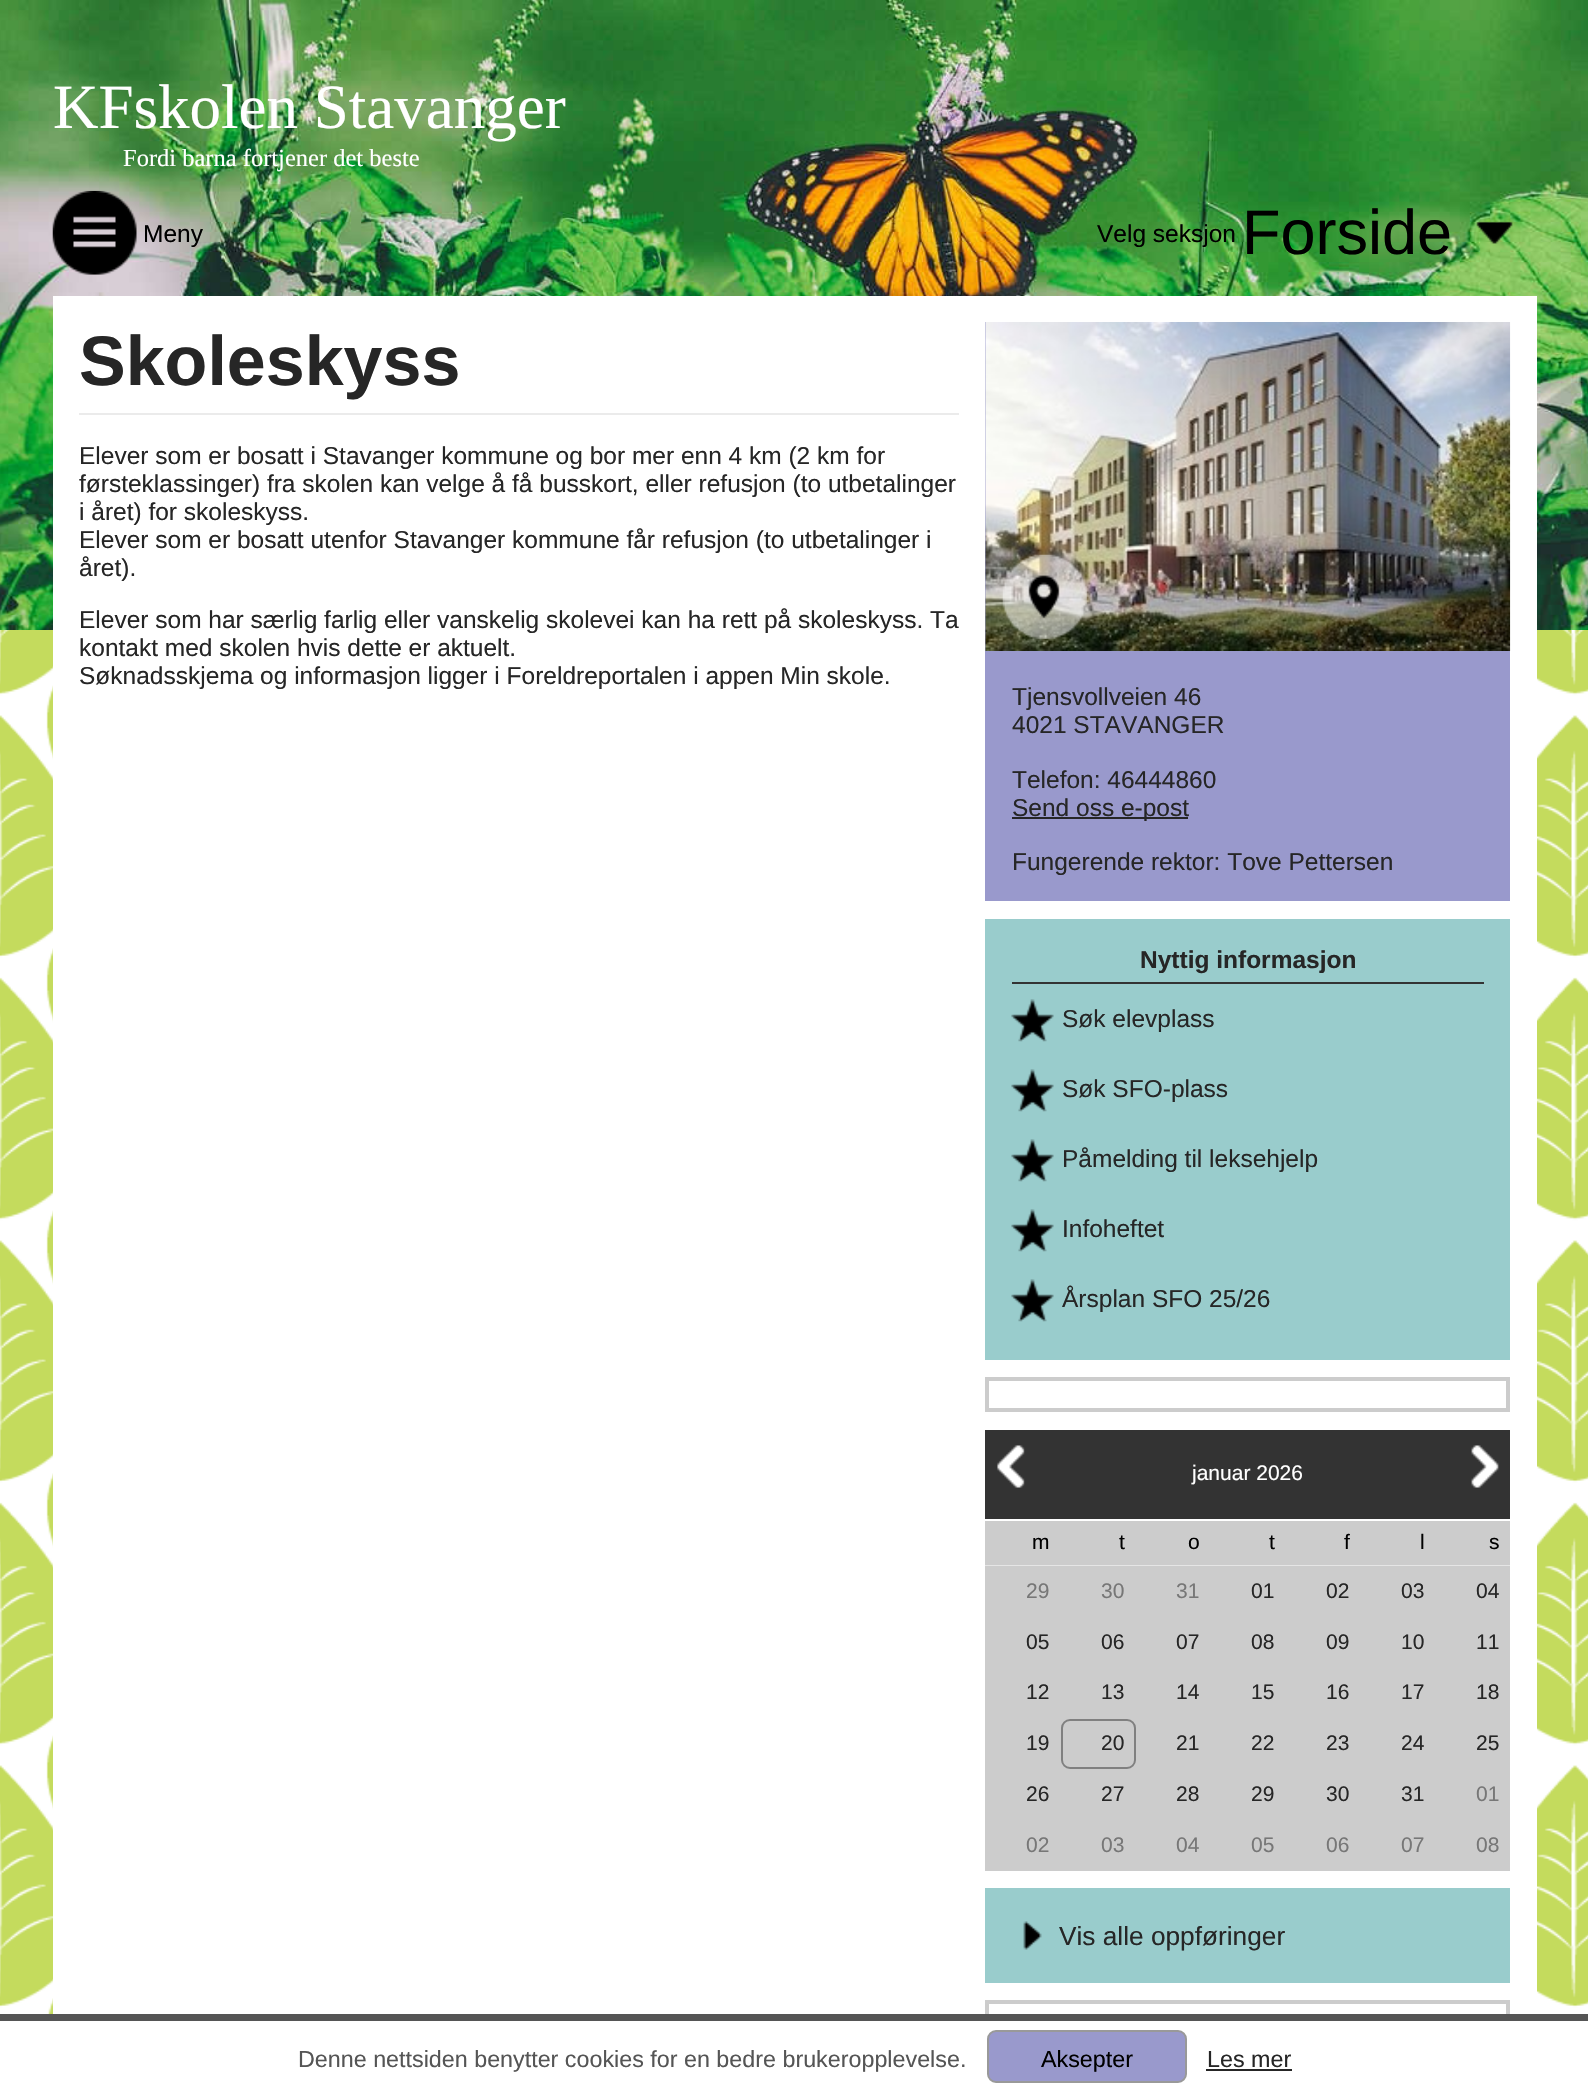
void draw(SkCanvas* canvas) {
	SkPaint fill;
	fill.setAntiAlias(true);
	auto makeFont = [&](const char* family, int weight, float size, bool italic = false) {
		SkFontStyle style(weight, SkFontStyle::kNormal_Width,
			italic ? SkFontStyle::kItalic_Slant : SkFontStyle::kUpright_Slant);
		SkFont result(fontMgr->matchFamilyStyle(family, style), size);
		result.setSubpixel(true);
		return result;
	};
	auto text = [&](const char* s, float x, float y, const SkFont& font) {
		canvas->drawString(s, x, y, font, fill);
	};
	auto box = [&](float l, float t, float r, float b) {
		canvas->drawRect(SkRect::MakeLTRB(l, t, r, b), fill);
	};
	auto picture = [&](const char* path, float l, float t, float r, float b) {
		auto image = SkImages::DeferredFromEncodedData(SkData::MakeFromFileName(path));
		canvas->drawImageRect(image, SkRect::MakeLTRB(l, t, r, b), SkSamplingOptions());
	};
	canvas->clear(0xFFFFFFFF);
	picture("image0.png", 0, 630, 1588, 2014);
	picture("image1.png", 0, 0, 1588, 630);
	picture("image2.png", 52, 190, 137, 275);
	picture("image3.png", 1476, 221, 1513, 244);
	fill.setColor(0xFFFFFFFF);
	box(53, 296, 1537, 2014);
	fill.setColor(0xFFEBEBEB);
	box(79, 413, 959, 415);
	fill.setColor(0xFF9999CC);
	box(985, 322, 1510, 901);
	picture("image4.png", 985, 322, 1511, 651);
	picture("image5.png", 1002, 554, 1087, 639);
	fill.setColor(0xFF262626);
	box(1012, 817, 1188, 819);
	fill.setColor(0xFF99CCCC);
	box(985, 919, 1510, 1360);
	fill.setColor(0xFF333333);
	box(1012, 982, 1484, 984);
	picture("image6.png", 1011, 999, 1054, 1042);
	picture("image6.png", 1011, 1069, 1054, 1112);
	picture("image6.png", 1011, 1139, 1054, 1182);
	picture("image6.png", 1011, 1209, 1054, 1252);
	picture("image6.png", 1011, 1279, 1054, 1322);
	fill.setStyle(SkPaint::kStroke_Style);
	fill.setStrokeWidth(4);
	fill.setColor(0xFFCCCCCC);
	canvas->drawRect(SkRect::MakeLTRB(987, 1379, 1508, 1410), fill);
	fill.setStyle(SkPaint::kFill_Style);
	box(985, 1521, 1510, 1871);
	fill.setColor(0xFF333333);
	box(985, 1430, 1510, 1519);
	picture("image7.png", 997, 1445, 1025, 1488);
	picture("image8.png", 1471, 1445, 1499, 1488);
	fill.setColor(0xFFE5E5E5);
	box(985, 1565, 1510, 1566);
	fill.setStyle(SkPaint::kStroke_Style);
	fill.setStrokeWidth(2);
	fill.setColor(0xFF808080);
	canvas->drawRoundRect(SkRect::MakeLTRB(1062, 1720, 1135, 1768), 8, 8, fill);
	fill.setStyle(SkPaint::kFill_Style);
	fill.setColor(0xFF99CCCC);
	box(985, 1888, 1510, 1983);
	picture("image9.png", 1023, 1921, 1042, 1950);
	fill.setStyle(SkPaint::kStroke_Style);
	fill.setStrokeWidth(4);
	fill.setColor(0xFFCCCCCC);
	canvas->drawRect(SkRect::MakeLTRB(987, 2002, 1508, 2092), fill);
	fill.setStyle(SkPaint::kFill_Style);
	fill.setColor(0xFFFFFFFF);
	box(985, 2021, 1510, 2090);
	fill.setColor(0xFF555555);
	box(0, 2014, 1588, 2021);
	fill.setColor(0xFF9999CC);
	canvas->drawRoundRect(SkRect::MakeLTRB(988, 2031, 1186, 2082), 8, 8, fill);
	fill.setStyle(SkPaint::kStroke_Style);
	fill.setStrokeWidth(2);
	fill.setColor(0xFF999999);
	canvas->drawRoundRect(SkRect::MakeLTRB(988, 2031, 1186, 2082), 8, 8, fill);
	fill.setStyle(SkPaint::kFill_Style);
	fill.setColor(0xFF262626);
	box(1206, 2069, 1292, 2071);
	auto font1 = makeFont("Liberation Serif", 400, 63);
	fill.setColor(0xFFFFFFFF);
	text("KFskolen Stavanger", 53, 128, font1);
	auto font2 = makeFont("Liberation Serif", 400, 24.5f);
	text("Fordi barna fortjener det beste", 123, 166, font2);
	auto font3 = makeFont("Liberation Sans", 400, 24.5f);
	fill.setColor(0xFF000000);
	text("Meny", 143, 242, font3);
	text("Velg seksjon", 1097, 242, font3);
	auto font4 = makeFont("Liberation Sans", 400, 63);
	text("Forside", 1242, 254, font4);
	auto font5 = makeFont("Liberation Sans", 700, 70);
	fill.setColor(0xFF262626);
	text("Skoleskyss", 79, 385, font5);
	text("Elever som er bosatt i Stavanger kommune og bor mer enn 4 km (2 km for", 79, 464, font3);
	text("førsteklassinger) fra skolen kan velge å få busskort, eller refusjon (to utbetalinger", 79, 492, font3);
	text("i året) for skoleskyss.", 79, 520, font3);
	text("Elever som er bosatt utenfor Stavanger kommune får refusjon (to utbetalinger i", 79, 548, font3);
	text("året).", 79, 576, font3);
	text("Elever som har særlig farlig eller vanskelig skolevei kan ha rett på skoleskyss. Ta", 79, 628, font3);
	text("kontakt med skolen hvis dette er aktuelt.", 79, 656, font3);
	text("Søknadsskjema og informasjon ligger i Foreldreportalen i appen Min skole.", 79, 684, font3);
	text("Tjensvollveien 46", 1012, 705, font3);
	text("4021 STAVANGER", 1012, 733, font3);
	text("Telefon: 46444860", 1012, 788, font3);
	text("Send oss e-post", 1012, 816, font3);
	text("Fungerende rektor: Tove Pettersen", 1012, 870, font3);
	auto font6 = makeFont("Liberation Sans", 700, 24.5f);
	text("Nyttig informasjon", 1140, 968, font6);
	text("Søk elevplass", 1062, 1027, font3);
	text("Søk SFO-plass", 1062, 1097, font3);
	text("Påmelding til leksehjelp", 1062, 1167, font3);
	text("Infoheftet", 1062, 1237, font3);
	text("Årsplan SFO 25/26", 1062, 1307, font3);
	auto font7 = makeFont("Liberation Sans", 400, 21);
	fill.setColor(0xFFFFFFFF);
	text("januar 2026", 1192, 1480, font7);
	fill.setColor(0xFF000000);
	text("m", 1032, 1549, font7);
	text("t", 1119, 1549, font7);
	text("o", 1188, 1549, font7);
	text("t", 1269, 1549, font7);
	text("f", 1344, 1549, font7);
	text("l", 1420, 1549, font7);
	text("s", 1489, 1549, font7);
	fill.setColor(0xFF777777);
	text("29", 1026, 1598, font7);
	text("30", 1101, 1598, font7);
	text("31", 1176, 1598, font7);
	fill.setColor(0xFF262626);
	text("01", 1251, 1598, font7);
	text("02", 1326, 1598, font7);
	text("03", 1401, 1598, font7);
	text("04", 1476, 1598, font7);
	text("05", 1026, 1649, font7);
	text("06", 1101, 1649, font7);
	text("07", 1176, 1649, font7);
	text("08", 1251, 1649, font7);
	text("09", 1326, 1649, font7);
	text("10", 1401, 1649, font7);
	text("11", 1476, 1649, font7);
	text("12", 1026, 1699, font7);
	text("13", 1101, 1699, font7);
	text("14", 1176, 1699, font7);
	text("15", 1251, 1699, font7);
	text("16", 1326, 1699, font7);
	text("17", 1401, 1699, font7);
	text("18", 1476, 1699, font7);
	text("19", 1026, 1750, font7);
	text("20", 1101, 1750, font7);
	text("21", 1176, 1750, font7);
	text("22", 1251, 1750, font7);
	text("23", 1326, 1750, font7);
	text("24", 1401, 1750, font7);
	text("25", 1476, 1750, font7);
	text("26", 1026, 1801, font7);
	text("27", 1101, 1801, font7);
	text("28", 1176, 1801, font7);
	text("29", 1251, 1801, font7);
	text("30", 1326, 1801, font7);
	text("31", 1401, 1801, font7);
	fill.setColor(0xFF777777);
	text("01", 1476, 1801, font7);
	text("02", 1026, 1852, font7);
	text("03", 1101, 1852, font7);
	text("04", 1176, 1852, font7);
	text("05", 1251, 1852, font7);
	text("06", 1326, 1852, font7);
	text("07", 1401, 1852, font7);
	text("08", 1476, 1852, font7);
	auto font8 = makeFont("Liberation Sans", 400, 26.25f);
	fill.setColor(0xFF262626);
	text("Vis alle oppføringer", 1059, 1945, font8);
	auto font9 = makeFont("Liberation Sans", 400, 23.3f);
	fill.setColor(0xFF555555);
	text("Denne nettsiden benytter cookies for en bedre brukeropplevelse.", 298, 2067, font9);
	fill.setColor(0xFF000000);
	text("Aksepter", 1041, 2067, font9);
	fill.setColor(0xFF262626);
	text("Les mer", 1207, 2067, font9);
}
